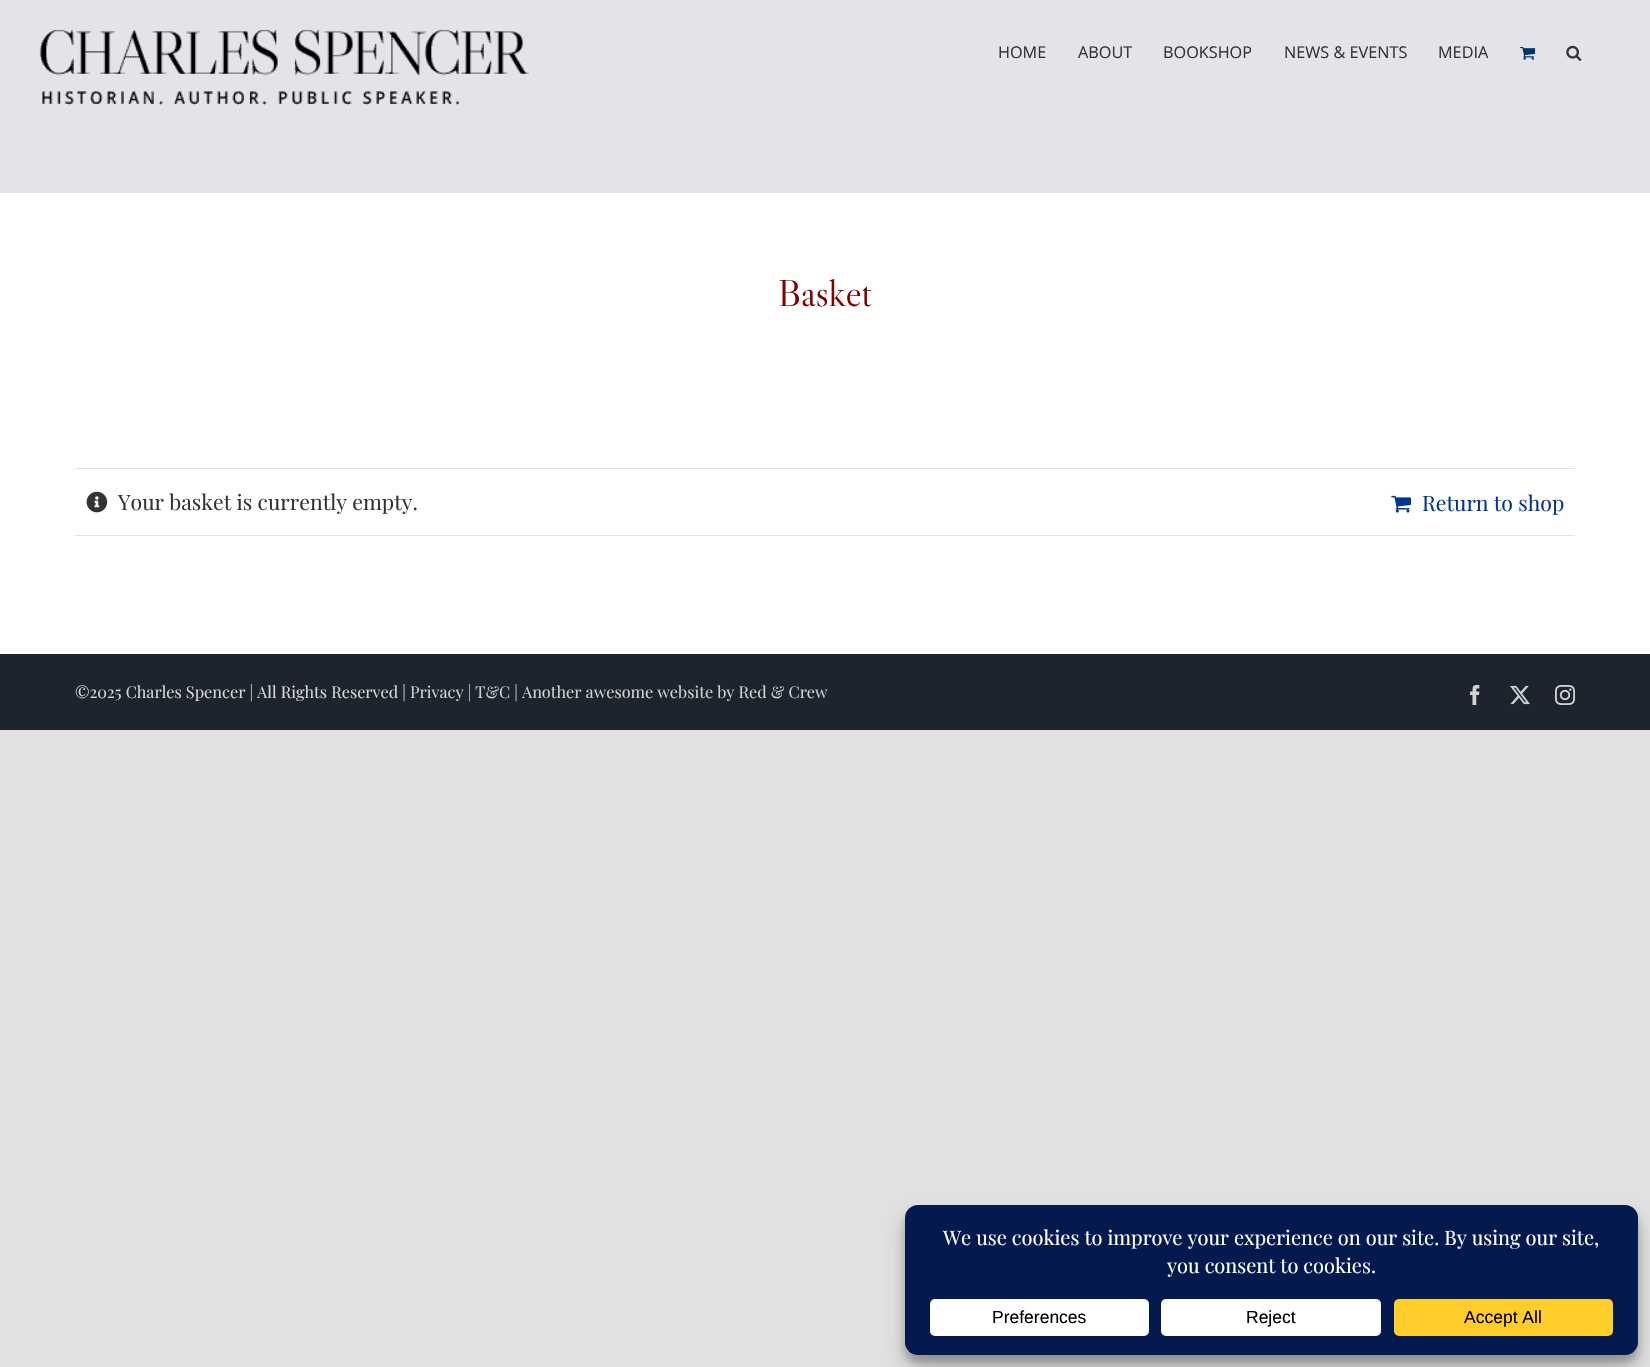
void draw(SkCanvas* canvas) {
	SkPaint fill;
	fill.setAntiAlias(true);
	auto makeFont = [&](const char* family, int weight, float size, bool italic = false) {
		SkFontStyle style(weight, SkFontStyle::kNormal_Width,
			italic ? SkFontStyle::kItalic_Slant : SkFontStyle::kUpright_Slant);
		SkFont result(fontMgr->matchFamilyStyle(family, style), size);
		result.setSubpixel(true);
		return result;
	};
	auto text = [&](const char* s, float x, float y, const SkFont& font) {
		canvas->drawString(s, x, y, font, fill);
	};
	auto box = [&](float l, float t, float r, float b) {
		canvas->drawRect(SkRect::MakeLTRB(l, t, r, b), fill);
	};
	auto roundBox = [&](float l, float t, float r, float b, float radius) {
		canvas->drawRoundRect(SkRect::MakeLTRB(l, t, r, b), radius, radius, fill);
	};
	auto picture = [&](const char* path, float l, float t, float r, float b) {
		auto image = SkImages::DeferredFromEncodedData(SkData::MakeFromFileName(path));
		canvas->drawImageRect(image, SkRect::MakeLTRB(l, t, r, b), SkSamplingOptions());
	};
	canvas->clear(0xFFE2E2E2);
	fill.setColor(0xFFFFFFFF);
	box(0, 193, 1650, 654);
	fill.setColor(0xFFE3E3EA);
	box(0, 0, 1650, 193);
	picture("image0.png", 39, 29, 529, 106);
	picture("image1.png", 1520, 47, 1536, 60);
	picture("image2.png", 1566, 45, 1582, 61);
	fill.setColor(0xFFE2E2E2);
	box(75, 468, 1575, 469);
	box(75, 535, 1575, 536);
	picture("image3.png", 86, 491, 108, 513);
	picture("image4.png", 1391, 495, 1411, 513);
	fill.setColor(0xFF1D242D);
	box(0, 654, 1650, 730);
	picture("image5.png", 1470, 685, 1480, 705);
	picture("image6.png", 1510, 685, 1530, 705);
	picture("image7.png", 1555, 685, 1575, 705);
	fill.setColor(0x3B000000);
	fill.setMaskFilter(SkMaskFilter::MakeBlur(kNormal_SkBlurStyle, 4));
	canvas->drawRoundRect(SkRect::MakeLTRB(905, 1213, 1638, 1363), 13, 13, fill);
	fill.setMaskFilter(nullptr);
	fill.setColor(0x30000000);
	fill.setMaskFilter(SkMaskFilter::MakeBlur(kNormal_SkBlurStyle, 12.5f));
	canvas->drawRoundRect(SkRect::MakeLTRB(905, 1218, 1638, 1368), 13, 13, fill);
	fill.setMaskFilter(nullptr);
	fill.setColor(0xFF04194E);
	roundBox(905, 1205, 1638, 1355, 13);
	fill.setColor(0xFFFFFFFF);
	roundBox(930, 1299, 1149, 1336, 5);
	roundBox(1161, 1299, 1381, 1336, 5);
	fill.setColor(0xFFFFCD2A);
	roundBox(1394, 1299, 1613, 1336, 5);
	auto font1 = makeFont("Open Sans", 400, 16.25f);
	fill.setColor(0xFF333333);
	text("HOME", 998, 58, font1);
	text("ABOUT", 1078, 58, font1);
	text("BOOKSHOP", 1163, 58, font1);
	text("NEWS & EVENTS", 1284, 58, font1);
	text("MEDIA", 1438, 58, font1);
	auto font2 = makeFont("Libre Caslon Display", 400, 37.5f);
	fill.setColor(0xFF800000);
	text("Basket", 778, 306, font2);
	auto font3 = makeFont("Playfair Display", 400, 21.25f);
	fill.setColor(0xFF333333);
	text("Your basket is currently empty.", 118, 510, font3);
	fill.setColor(0xFF01358E);
	text("Return to shop", 1422, 511, font3);
	auto font4 = makeFont("Playfair Display", 400, 16.25f);
	fill.setColor(0xFFD8D8D8);
	text("©2025 Charles Spencer | All Rights Reserved |", 75, 698, font4);
	fill.setColor(0xFFD2D3D5);
	text("Privacy | T&C | Another awesome website by Red & Crew", 410, 698, font4);
	auto font5 = makeFont("Playfair Display", 400, 20);
	fill.setColor(0xFFFFFFFF);
	text("We use cookies to improve your experience on our site. By using our site,", 943, 1245, font5);
	text("you consent to cookies.", 1167, 1273, font5);
	auto font6 = makeFont("Liberation Sans", 400, 17.5f);
	fill.setColor(0xFF000000);
	text("Preferences", 992, 1323, font6);
	text("Reject", 1246, 1323, font6);
	text("Accept All", 1464, 1323, font6);
}
